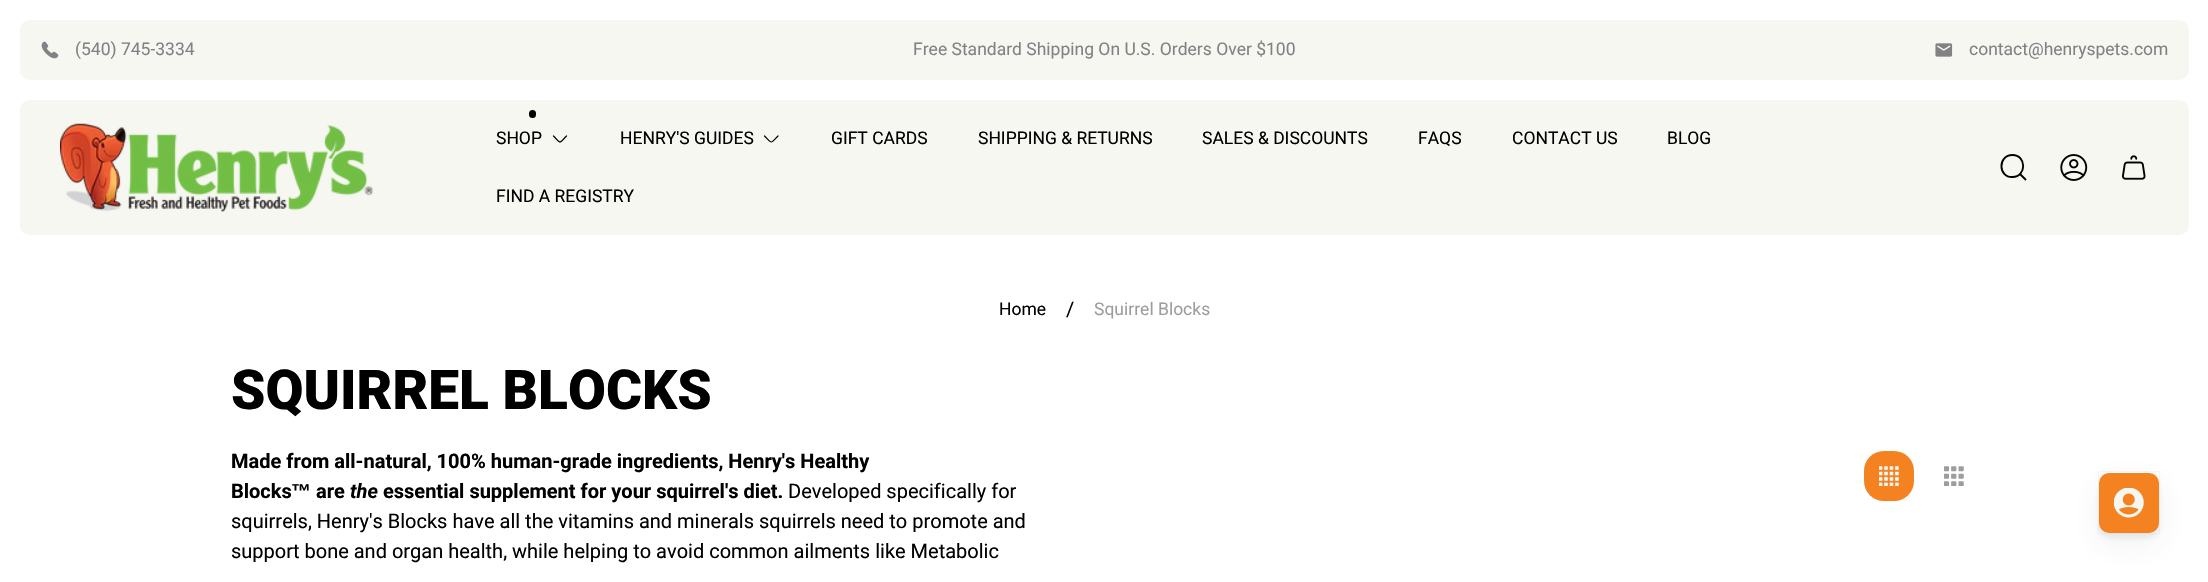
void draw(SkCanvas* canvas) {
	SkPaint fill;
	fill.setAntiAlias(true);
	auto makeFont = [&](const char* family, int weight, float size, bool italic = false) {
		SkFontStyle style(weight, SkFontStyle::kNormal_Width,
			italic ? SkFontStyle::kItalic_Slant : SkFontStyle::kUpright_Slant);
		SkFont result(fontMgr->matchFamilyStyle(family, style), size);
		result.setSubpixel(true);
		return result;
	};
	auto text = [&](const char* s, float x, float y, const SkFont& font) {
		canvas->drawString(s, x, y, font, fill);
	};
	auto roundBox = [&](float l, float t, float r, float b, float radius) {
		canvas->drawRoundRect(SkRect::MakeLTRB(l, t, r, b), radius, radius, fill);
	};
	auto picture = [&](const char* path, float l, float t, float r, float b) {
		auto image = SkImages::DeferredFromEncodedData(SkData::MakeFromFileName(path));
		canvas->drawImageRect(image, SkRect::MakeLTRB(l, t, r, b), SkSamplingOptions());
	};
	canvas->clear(0xFFFFFFFF);
	fill.setColor(0xFFF7F7F2);
	roundBox(20, 20, 2189, 80, 10);
	picture("image0.png", 41, 41, 59, 59);
	picture("image1.png", 1935, 43, 1953, 57);
	roundBox(20, 100, 2189, 235, 10);
	picture("image2.png", 60, 123, 373, 212);
	fill.setColor(0xFF000000);
	roundBox(529, 110, 536, 118, 3.5f);
	fill.setStyle(SkPaint::kStroke_Style);
	fill.setStrokeWidth(1.2f);
	fill.setStrokeCap(SkPaint::kRound_Cap);
	fill.setStrokeJoin(SkPaint::kRound_Join);
	canvas->drawPath(SkPathBuilder().moveTo(566.5f, 136).cubicTo(559, 144, 561, 144, 553.5f, 136).detach(), fill);
	canvas->drawPath(SkPathBuilder().moveTo(778, 136).cubicTo(770, 144, 772.5f, 144, 764.5f, 136).detach(), fill);
	fill.setStrokeWidth(1.9f);
	fill.setStrokeCap(SkPaint::kButt_Cap);
	fill.setStrokeJoin(SkPaint::kMiter_Join);
	canvas->drawPath(SkPathBuilder().moveTo(2020, 174).lineTo(2026, 180).moveTo(2012.5f, 155).cubicTo(2026.5f, 155, 2027, 176.5f, 2012.5f, 177).cubicTo(1998, 177.5f, 1997.5f, 155, 2012.5f, 155).close().detach(), fill);
	picture("image3.png", 2060, 154, 2088, 181);
	picture("image4.png", 2122, 155, 2146, 180);
	fill.setStyle(SkPaint::kFill_Style);
	fill.setColor(0xFFF58220);
	roundBox(1864, 451, 1914, 501, 20);
	picture("image5.png", 1879, 466, 1899, 486);
	picture("image6.png", 1944, 466, 1964, 486);
	fill.setColor(0x14373F47);
	fill.setMaskFilter(SkMaskFilter::MakeBlur(kNormal_SkBlurStyle, 15));
	canvas->drawRoundRect(SkRect::MakeLTRB(2099, 483, 2159, 543), 10, 10, fill);
	fill.setMaskFilter(nullptr);
	fill.setMaskFilter(SkMaskFilter::MakeBlur(kNormal_SkBlurStyle, 2.5f));
	canvas->drawRoundRect(SkRect::MakeLTRB(2099, 478, 2159, 538), 10, 10, fill);
	fill.setMaskFilter(nullptr);
	fill.setStyle(SkPaint::kStroke_Style);
	fill.setStrokeWidth(1);
	fill.setColor(0x0A373F47);
	canvas->drawRect(SkRect::MakeLTRB(2098.5f, 471.5f, 2159.5f, 533.5f), fill);
	fill.setStyle(SkPaint::kFill_Style);
	fill.setColor(0xFFF58220);
	roundBox(2099, 473, 2159, 533, 10);
	picture("image7.png", 2114, 488, 2144, 518);
	auto font1 = makeFont("Roboto", 400, 17.5f);
	fill.setColor(0xFF818284);
	text("(540) 745-3334", 75, 55, font1);
	text("Free Standard Shipping On U.S. Orders Over $100", 913, 55, font1);
	text("contact@henryspets.com", 1969, 55, font1);
	fill.setColor(0xFF000000);
	text("SHOP", 496, 144, font1);
	text("HENRY'S GUIDES", 620, 144, font1);
	text("GIFT CARDS", 831, 144, font1);
	text("SHIPPING & RETURNS", 978, 144, font1);
	text("SALES & DISCOUNTS", 1202, 144, font1);
	text("FAQS", 1418, 144, font1);
	text("CONTACT US", 1512, 144, font1);
	text("BLOG", 1667, 144, font1);
	text("FIND A REGISTRY", 496, 202, font1);
	text("Home", 999, 315, font1);
	auto font2 = makeFont("Roboto", 400, 20);
	text("/", 1066, 316, font2);
	fill.setColor(0xFF9D9D9D);
	text("Squirrel Blocks", 1094, 315, font1);
	auto font3 = makeFont("Roboto", 900, 55);
	fill.setColor(0xFF000000);
	text("SQUIRREL BLOCKS", 231, 409, font3);
	auto font4 = makeFont("Roboto", 700, 20);
	text("Made from all-natural, 100% human-grade ingredients, Henry's Healthy", 231, 468, font4);
	text("Blocks", 231, 498, font4);
	auto font5 = makeFont("Liberation Sans", 700, 20);
	text("™", 291, 498, font5);
	text("are", 316, 498, font4);
	auto font6 = makeFont("Roboto", 700, 20, true);
	text("the", 350, 498, font6);
	text("essential supplement for your squirrel's diet.", 383, 498, font4);
	text("Developed specifically for", 788, 498, font2);
	text("squirrels, Henry's Blocks have all the vitamins and minerals squirrels need to promote and", 231, 528, font2);
	text("support bone and organ health, while helping to avoid common ailments like Metabolic", 231, 558, font2);
}
